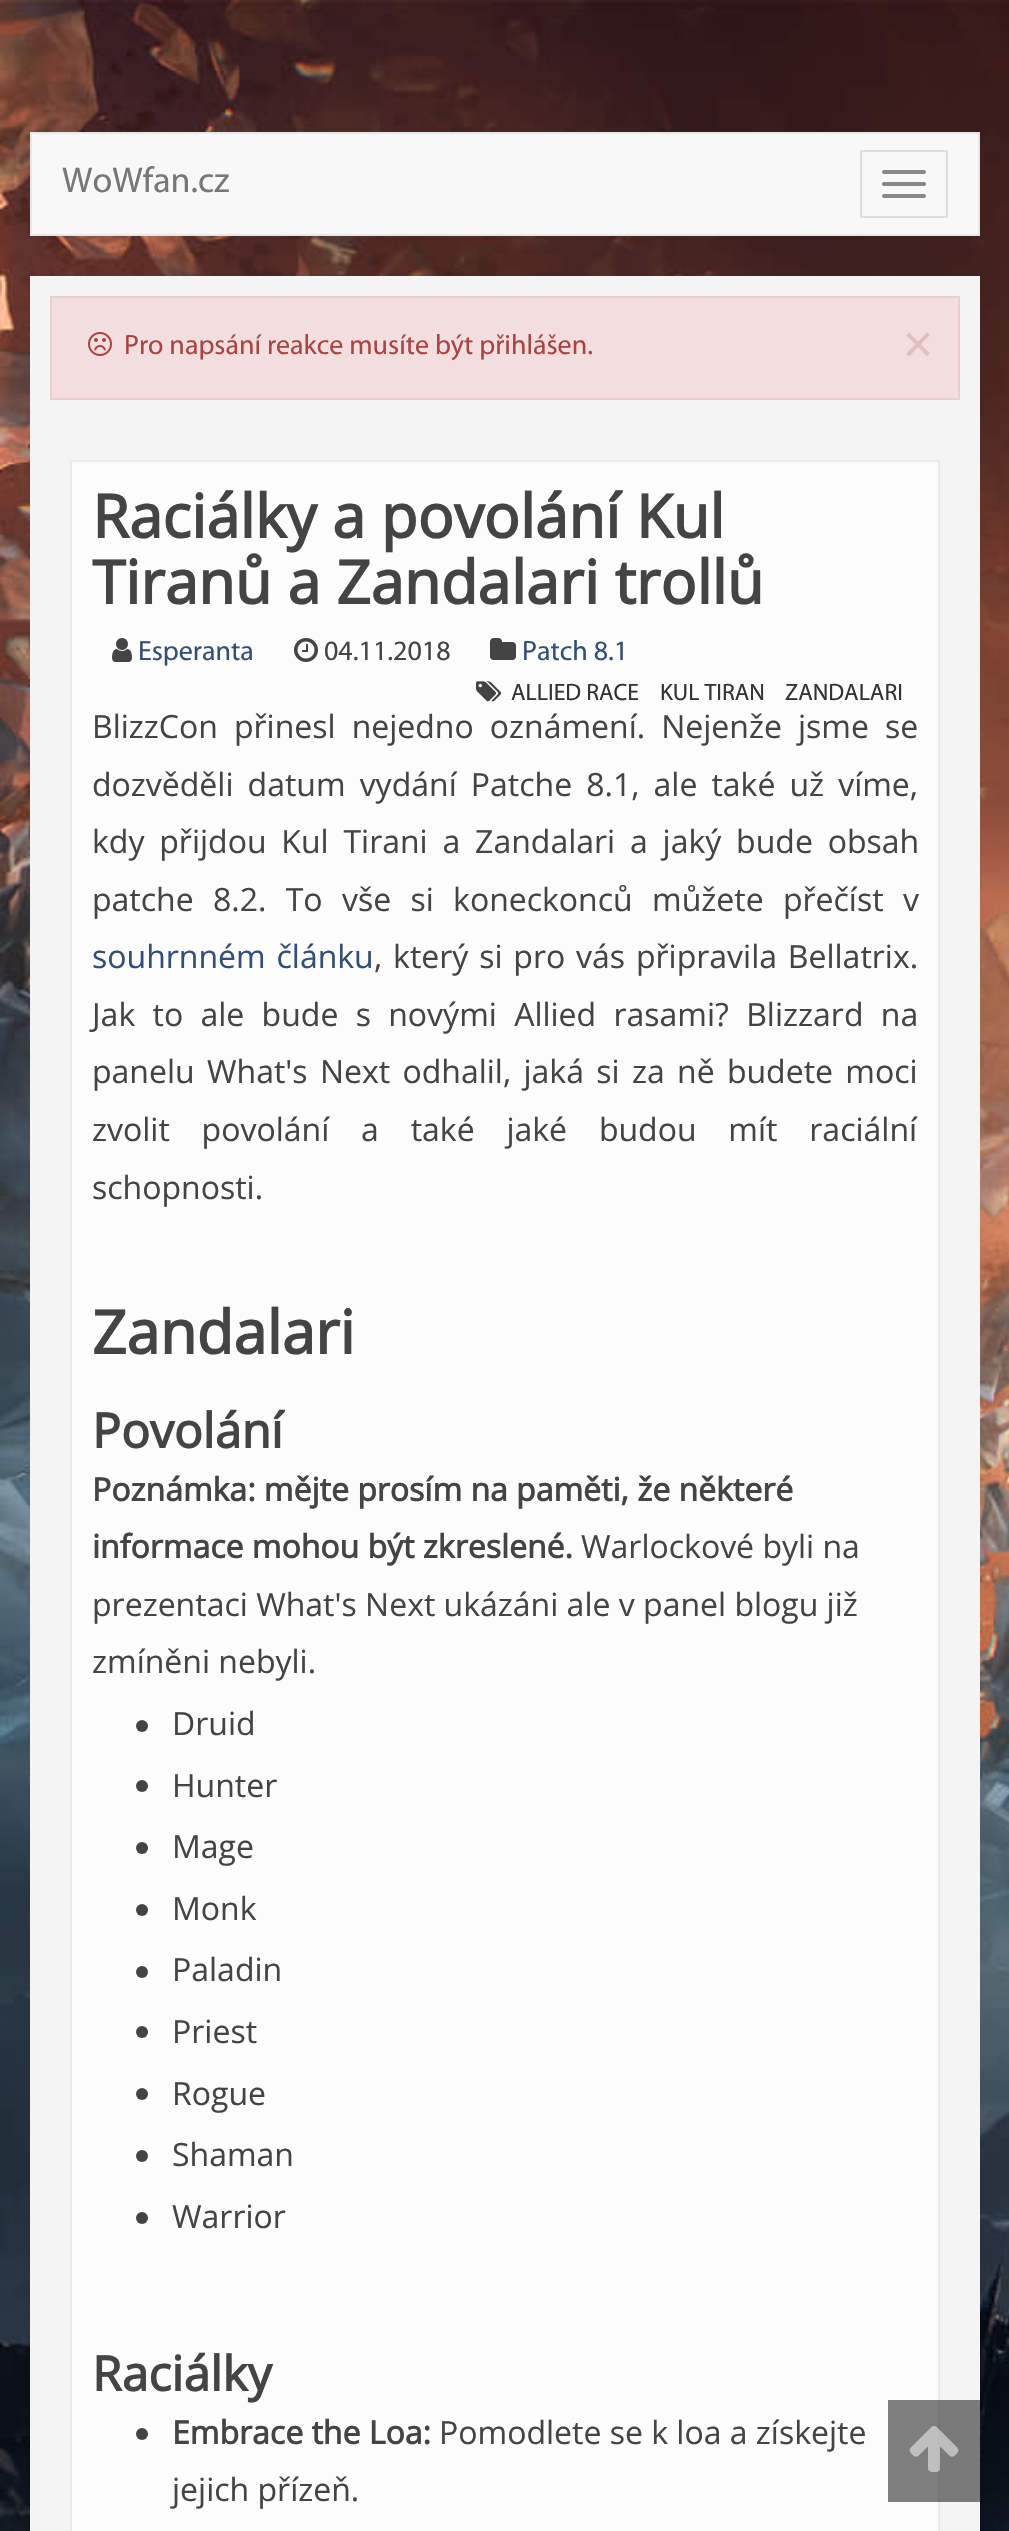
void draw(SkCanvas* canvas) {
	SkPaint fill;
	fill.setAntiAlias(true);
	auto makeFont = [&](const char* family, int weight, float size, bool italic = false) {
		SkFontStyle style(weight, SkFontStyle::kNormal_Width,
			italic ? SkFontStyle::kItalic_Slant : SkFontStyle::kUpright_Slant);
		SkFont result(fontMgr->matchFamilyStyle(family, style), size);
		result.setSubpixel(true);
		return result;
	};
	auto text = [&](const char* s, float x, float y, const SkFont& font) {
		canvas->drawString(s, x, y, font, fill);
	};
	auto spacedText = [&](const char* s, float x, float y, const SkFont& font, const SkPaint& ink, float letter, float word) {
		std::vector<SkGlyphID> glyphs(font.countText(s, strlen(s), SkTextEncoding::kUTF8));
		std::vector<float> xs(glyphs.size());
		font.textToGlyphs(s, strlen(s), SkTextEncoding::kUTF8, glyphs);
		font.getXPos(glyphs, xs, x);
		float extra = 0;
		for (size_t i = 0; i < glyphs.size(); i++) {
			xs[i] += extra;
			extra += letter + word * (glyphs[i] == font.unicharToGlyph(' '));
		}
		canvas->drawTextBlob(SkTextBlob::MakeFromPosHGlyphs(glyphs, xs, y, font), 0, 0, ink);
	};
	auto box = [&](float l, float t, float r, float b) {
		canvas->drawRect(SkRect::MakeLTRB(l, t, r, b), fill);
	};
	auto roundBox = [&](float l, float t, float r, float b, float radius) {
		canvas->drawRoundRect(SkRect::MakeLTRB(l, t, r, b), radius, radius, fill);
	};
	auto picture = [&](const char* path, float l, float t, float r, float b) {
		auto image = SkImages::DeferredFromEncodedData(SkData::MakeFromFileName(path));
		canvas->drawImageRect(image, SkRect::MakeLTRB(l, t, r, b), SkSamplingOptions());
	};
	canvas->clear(0xFFFFFFFF);
	picture("image0.png", 0, 0, 1009, 2531);
	fill.setColor(0xFFF8F8F8);
	canvas->drawRect(SkRect::MakeLTRB(31, 133, 979, 235), fill);
	fill.setStyle(SkPaint::kStroke_Style);
	fill.setStrokeWidth(2);
	fill.setColor(0xFFE7E7E7);
	canvas->drawRect(SkRect::MakeLTRB(31, 133, 979, 235), fill);
	fill.setColor(0xFFDDDDDD);
	canvas->drawRect(SkRect::MakeLTRB(861, 151, 947, 217), fill);
	fill.setStyle(SkPaint::kFill_Style);
	fill.setColor(0xFF888888);
	roundBox(882, 170, 926, 174, 2);
	roundBox(882, 182, 926, 186, 2);
	roundBox(882, 194, 926, 198, 2);
	fill.setColor(0xFFF4F4F4);
	box(30, 276, 980, 2531);
	fill.setColor(0xFFF2DEDE);
	canvas->drawRect(SkRect::MakeLTRB(51, 297, 959, 399), fill);
	fill.setStyle(SkPaint::kStroke_Style);
	fill.setColor(0xFFEBCCD1);
	canvas->drawRect(SkRect::MakeLTRB(51, 297, 959, 399), fill);
	picture("image1.png", 88, 332, 112, 356);
	fill.setStyle(SkPaint::kFill_Style);
	fill.setColor(0xFFFCFCFC);
	canvas->drawRect(SkRect::MakeLTRB(71, 461, 939, 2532), fill);
	fill.setStyle(SkPaint::kStroke_Style);
	fill.setColor(0xFFEAEAEA);
	canvas->drawRect(SkRect::MakeLTRB(71, 461, 939, 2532), fill);
	picture("image2.png", 112, 638, 132, 662);
	picture("image3.png", 294, 638, 318, 662);
	picture("image4.png", 490, 638, 516, 660);
	picture("image5.png", 476, 681, 502, 702);
	fill.setStyle(SkPaint::kFill_Style);
	fill.setColor(0xFF444444);
	canvas->drawCircle(142, 1726, 6, fill);
	canvas->drawCircle(142, 1786, 6, fill);
	canvas->drawCircle(142, 1848, 6, fill);
	canvas->drawCircle(142, 1910, 6, fill);
	canvas->drawCircle(142, 1972, 6, fill);
	canvas->drawCircle(142, 2032, 6, fill);
	canvas->drawCircle(142, 2094, 6, fill);
	canvas->drawCircle(142, 2156, 6, fill);
	canvas->drawCircle(142, 2218, 6, fill);
	canvas->drawCircle(142, 2434, 6, fill);
	fill.setColor(0x80000000);
	box(888, 2400, 980, 2502);
	picture("image6.png", 909, 2426, 959, 2472);
	auto font1 = makeFont("Myriad", 400, 36);
	fill.setColor(0xFF777777);
	text("WoWfan.cz", 62, 192, font1);
	auto font2 = makeFont("Myriad", 400, 28);
	fill.setColor(0xFFA94442);
	text("Pro napsání reakce musíte být přihlášen.", 124, 354, font2);
	auto font3 = makeFont("Myriad", 700, 42);
	fill.setColor(0xFFE3BFBF);
	text("×", 905, 356, font3);
	auto font4 = makeFont("Open Sans", 700, 60);
	fill.setColor(0xFF444444);
	text("Raciálky a povolání Kul", 92, 538, font4);
	text("Tiranů a Zandalari trollů", 92, 604, font4);
	fill.setColor(0xFF324E7A);
	text("Esperanta", 138, 660, font2);
	fill.setColor(0xFF444444);
	text("04.11.2018", 324, 660, font2);
	fill.setColor(0xFF324E7A);
	text("Patch 8.1", 522, 660, font2);
	auto font5 = makeFont("Myriad", 400, 23.75f);
	fill.setColor(0xFF333333);
	text("ALLIED RACE", 511, 700, font5);
	text("KUL TIRAN", 660, 700, font5);
	text("ZANDALARI", 785, 700, font5);
	auto font6 = makeFont("Open Sans", 400, 32);
	fill.setColor(0xFF444444);
	spacedText("BlizzCon přinesl nejedno oznámení. Nejenže jsme se", 92, 738, font6, fill, 0, 7.75f);
	spacedText("dozvěděli datum vydání Patche 8.1, ale také už víme,", 92, 796, font6, fill, 0, 5.75f);
	spacedText("kdy přijdou Kul Tirani a Zandalari a jaký bude obsah", 92, 853, font6, fill, 0, 6.5f);
	spacedText("patche 8.2. To vše si koneckonců můžete přečíst v", 92, 911, font6, fill, 0, 11);
	fill.setColor(0xFF324E7A);
	spacedText("souhrnném článku", 92, 968, font6, fill, 0, 2.5f);
	fill.setColor(0xFF444444);
	spacedText(", který si pro vás připravila Bellatrix.", 374, 968, font6, fill, 0, 2.5f);
	spacedText("Jak to ale bude s novými Allied rasami? Blizzard na", 92, 1026, font6, fill, 0, 9);
	spacedText("panelu What's Next odhalil, jaká si za ně budete moci", 92, 1083, font6, fill, 0, 4);
	spacedText("zvolit povolání a také jaké budou mít raciální", 92, 1141, font6, fill, 0, 23.5f);
	text("schopnosti.", 92, 1199, font6);
	text("Zandalari", 92, 1354, font4);
	auto font7 = makeFont("Open Sans", 700, 48);
	text("Povolání", 92, 1448, font7);
	auto font8 = makeFont("Open Sans", 700, 32);
	text("Poznámka: mějte prosím na paměti, že některé", 92, 1501, font8);
	text("informace mohou být zkreslené.", 92, 1558, font8);
	text("Warlockové byli na", 581, 1558, font6);
	text("prezentaci What's Next ukázáni ale v panel blogu již", 92, 1616, font6);
	text("zmíněni nebyli.", 92, 1673, font6);
	text("Druid", 172, 1735, font6);
	text("Hunter", 172, 1797, font6);
	text("Mage", 172, 1858, font6);
	text("Monk", 172, 1920, font6);
	text("Paladin", 172, 1981, font6);
	text("Priest", 172, 2043, font6);
	text("Rogue", 172, 2105, font6);
	text("Shaman", 172, 2166, font6);
	text("Warrior", 172, 2228, font6);
	text("Raciálky", 92, 2391, font7);
	text("Embrace the Loa:", 172, 2444, font8);
	text("Pomodlete se k loa a získejte", 439, 2444, font6);
	text("jejich přízeň.", 172, 2501, font6);
}
